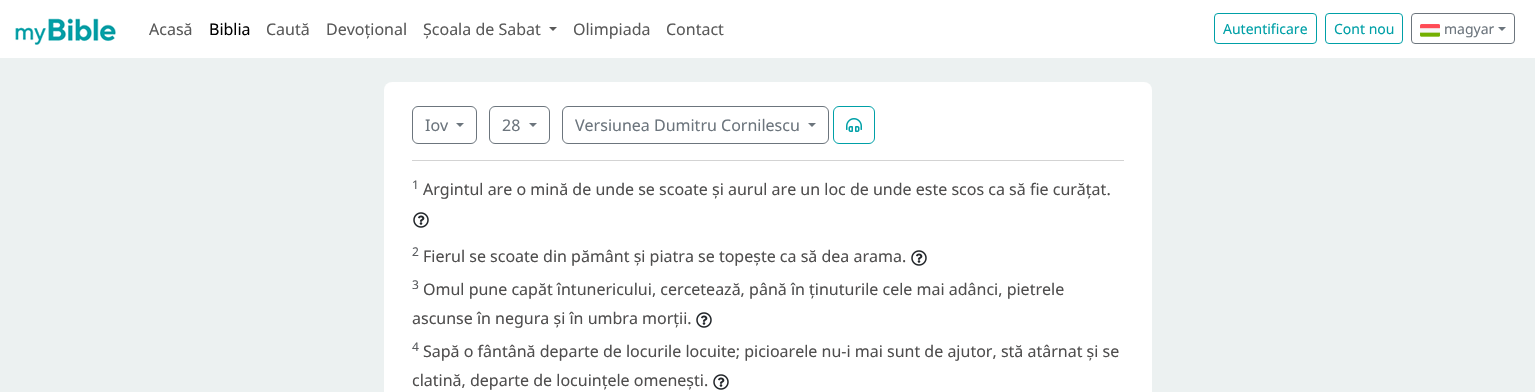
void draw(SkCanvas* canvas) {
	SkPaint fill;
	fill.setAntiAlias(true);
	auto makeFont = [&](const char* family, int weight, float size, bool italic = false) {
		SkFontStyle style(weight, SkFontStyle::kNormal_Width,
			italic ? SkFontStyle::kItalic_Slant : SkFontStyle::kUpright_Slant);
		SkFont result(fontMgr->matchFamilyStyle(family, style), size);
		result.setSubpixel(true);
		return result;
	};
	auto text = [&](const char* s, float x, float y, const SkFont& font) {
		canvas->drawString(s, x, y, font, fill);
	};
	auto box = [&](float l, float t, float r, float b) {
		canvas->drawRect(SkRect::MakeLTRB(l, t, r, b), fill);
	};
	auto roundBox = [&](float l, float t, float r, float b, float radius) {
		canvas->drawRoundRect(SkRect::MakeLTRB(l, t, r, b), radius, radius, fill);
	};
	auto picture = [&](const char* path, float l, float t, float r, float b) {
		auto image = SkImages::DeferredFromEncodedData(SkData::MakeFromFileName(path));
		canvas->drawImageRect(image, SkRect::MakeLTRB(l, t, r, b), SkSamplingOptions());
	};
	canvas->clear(0xFFECF1F1);
	fill.setColor(0xFFFFFFFF);
	box(0, 0, 1535, 58);
	picture("image0.png", 15, 18, 116, 45);
	fill.setColor(0xFF595959);
	canvas->drawPath(SkPathBuilder().moveTo(549, 27).lineTo(557, 27).lineTo(553, 31).close().detach(), fill);
	fill.setStyle(SkPaint::kStroke_Style);
	fill.setStrokeWidth(1);
	fill.setColor(0xFF00A0A7);
	canvas->drawRoundRect(SkRect::MakeLTRB(1214.5f, 13.5f, 1316.5f, 43.5f), 3.5f, 3.5f, fill);
	canvas->drawRoundRect(SkRect::MakeLTRB(1325.5f, 13.5f, 1402.5f, 43.5f), 3.5f, 3.5f, fill);
	fill.setColor(0xFF6C757D);
	canvas->drawRoundRect(SkRect::MakeLTRB(1411.5f, 13.5f, 1514.5f, 43.5f), 3.5f, 3.5f, fill);
	picture("image1.png", 1420, 24, 1440, 37);
	fill.setStyle(SkPaint::kFill_Style);
	canvas->drawPath(SkPathBuilder().moveTo(1498, 27).lineTo(1506, 27).lineTo(1502, 31).close().detach(), fill);
	fill.setColor(0xFFFFFFFF);
	roundBox(384, 82, 1152, 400, 8);
	fill.setStyle(SkPaint::kStroke_Style);
	fill.setColor(0xFF6C757D);
	canvas->drawRoundRect(SkRect::MakeLTRB(412.5f, 106.5f, 476.5f, 143.5f), 5.5f, 5.5f, fill);
	fill.setStyle(SkPaint::kFill_Style);
	canvas->drawPath(SkPathBuilder().moveTo(456, 123).lineTo(464, 123).lineTo(460, 127).close().detach(), fill);
	fill.setStyle(SkPaint::kStroke_Style);
	canvas->drawRoundRect(SkRect::MakeLTRB(489.5f, 106.5f, 549.5f, 143.5f), 5.5f, 5.5f, fill);
	fill.setStyle(SkPaint::kFill_Style);
	canvas->drawPath(SkPathBuilder().moveTo(529, 123).lineTo(537, 123).lineTo(533, 127).close().detach(), fill);
	fill.setStyle(SkPaint::kStroke_Style);
	canvas->drawRoundRect(SkRect::MakeLTRB(562.5f, 106.5f, 828.5f, 143.5f), 5.5f, 5.5f, fill);
	fill.setStyle(SkPaint::kFill_Style);
	canvas->drawPath(SkPathBuilder().moveTo(808, 123).lineTo(816, 123).lineTo(812, 127).close().detach(), fill);
	fill.setStyle(SkPaint::kStroke_Style);
	fill.setColor(0xFF00A0A7);
	canvas->drawRoundRect(SkRect::MakeLTRB(833.5f, 106.5f, 874.5f, 143.5f), 5.5f, 5.5f, fill);
	picture("image2.png", 846, 118, 862, 132);
	fill.setStyle(SkPaint::kFill_Style);
	fill.setColor(0xFFD3D3D3);
	box(412, 160, 1124, 161);
	picture("image3.png", 413, 212, 429, 228);
	picture("image3.png", 911, 250, 927, 266);
	picture("image3.png", 696, 312, 712, 328);
	picture("image3.png", 713, 374, 729, 390);
	auto font1 = makeFont("Noto Sans", 400, 16);
	fill.setColor(0xFF595959);
	text("Acasă", 149, 35, font1);
	fill.setColor(0xFF000000);
	text("Biblia", 209, 35, font1);
	fill.setColor(0xFF595959);
	text("Caută", 266, 35, font1);
	text("Devoțional", 326, 35, font1);
	text("Școala de Sabat", 423, 35, font1);
	text("Olimpiada", 573, 35, font1);
	text("Contact", 666, 35, font1);
	auto font2 = makeFont("Noto Sans", 400, 14);
	fill.setColor(0xFF00A0A7);
	text("Autentificare", 1223, 34, font2);
	text("Cont nou", 1334, 34, font2);
	fill.setColor(0xFF6C757D);
	text("magyar", 1444, 34, font2);
	text("Iov", 425, 131, font1);
	text("28", 502, 131, font1);
	text("Versiunea Dumitru Cornilescu", 575, 131, font1);
	auto font3 = makeFont("Noto Sans", 400, 12);
	fill.setColor(0xFF595C5F);
	text("1", 412, 189, font3);
	fill.setColor(0xFF4F4E4E);
	text("Argintul are o mină de unde se scoate și aurul are un loc de unde este scos ca să fie curățat.", 423, 195, font1);
	fill.setColor(0xFF595C5F);
	text("2", 412, 256, font3);
	fill.setColor(0xFF4F4E4E);
	text("Fierul se scoate din pământ și piatra se topește ca să dea arama.", 423, 262, font1);
	fill.setColor(0xFF595C5F);
	text("3", 412, 289, font3);
	fill.setColor(0xFF4F4E4E);
	text("Omul pune capăt întunericului, cercetează, până în ținuturile cele mai adânci, pietrele", 423, 295, font1);
	text("ascunse în negura și în umbra morții.", 412, 324, font1);
	fill.setColor(0xFF595C5F);
	text("4", 412, 351, font3);
	fill.setColor(0xFF4F4E4E);
	text("Sapă o fântână departe de locurile locuite; picioarele nu-i mai sunt de ajutor, stă atârnat și se", 423, 357, font1);
	text("clatină, departe de locuințele omenești.", 412, 386, font1);
}
